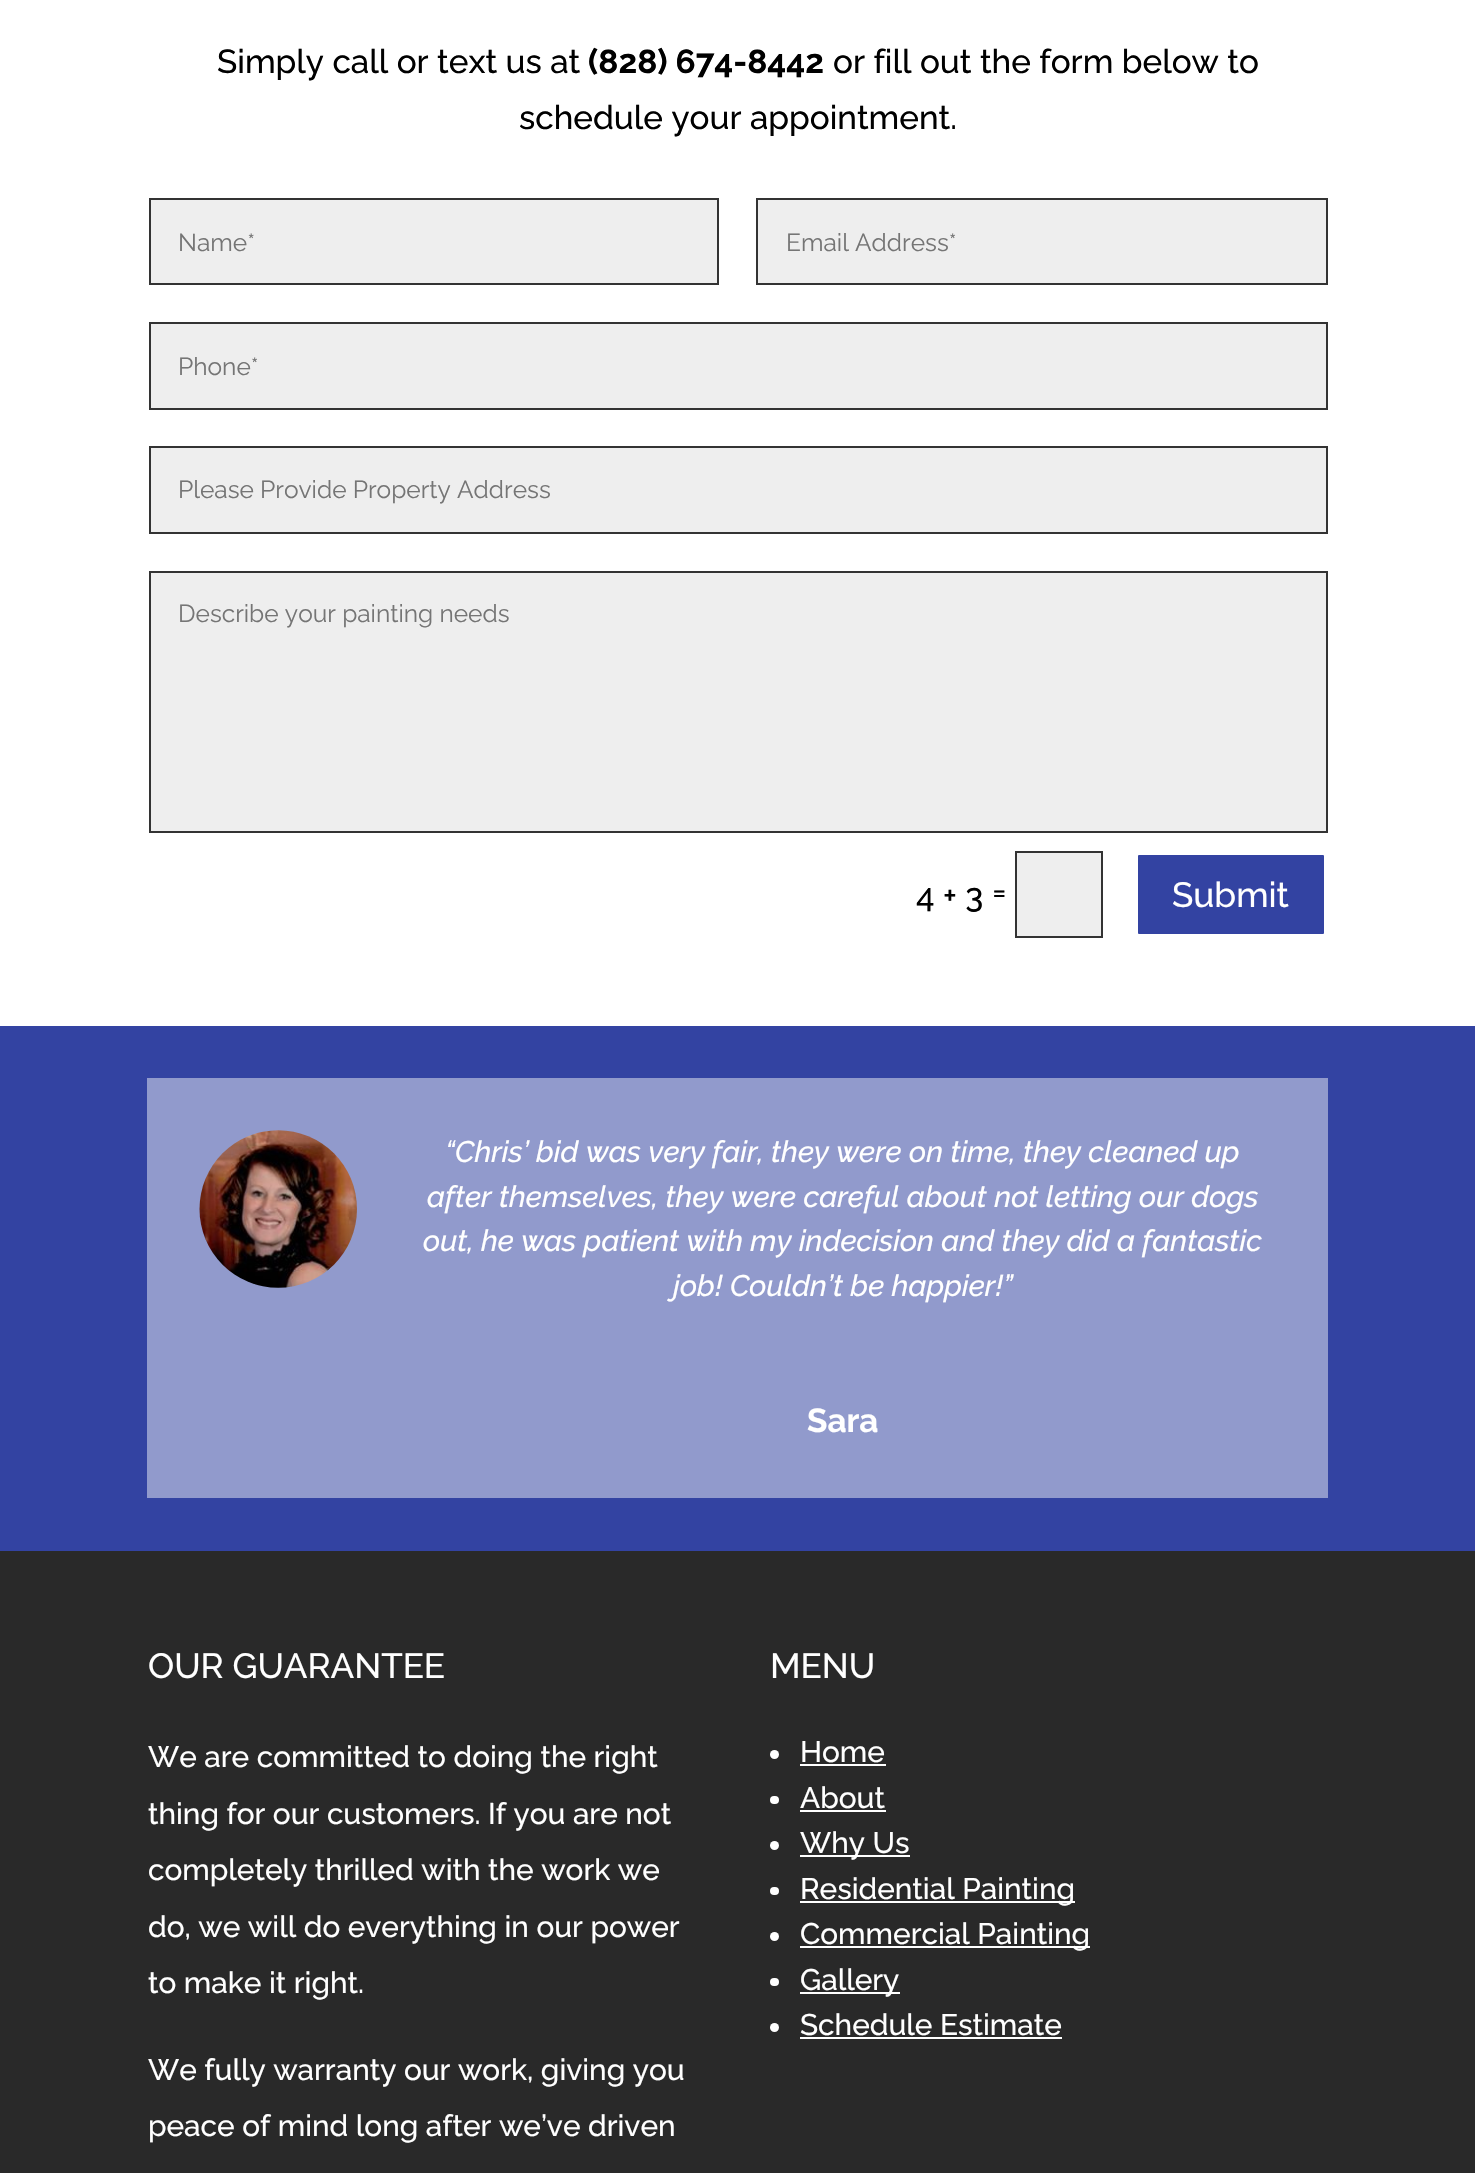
void draw(SkCanvas* canvas) {
	SkPaint fill;
	fill.setAntiAlias(true);
	auto makeFont = [&](const char* family, int weight, float size, bool italic = false) {
		SkFontStyle style(weight, SkFontStyle::kNormal_Width,
			italic ? SkFontStyle::kItalic_Slant : SkFontStyle::kUpright_Slant);
		SkFont result(fontMgr->matchFamilyStyle(family, style), size);
		result.setSubpixel(true);
		return result;
	};
	auto text = [&](const char* s, float x, float y, const SkFont& font) {
		canvas->drawString(s, x, y, font, fill);
	};
	auto box = [&](float l, float t, float r, float b) {
		canvas->drawRect(SkRect::MakeLTRB(l, t, r, b), fill);
	};
	auto roundBox = [&](float l, float t, float r, float b, float radius) {
		canvas->drawRoundRect(SkRect::MakeLTRB(l, t, r, b), radius, radius, fill);
	};
	auto picture = [&](const char* path, float l, float t, float r, float b) {
		auto image = SkImages::DeferredFromEncodedData(SkData::MakeFromFileName(path));
		canvas->drawImageRect(image, SkRect::MakeLTRB(l, t, r, b), SkSamplingOptions());
	};
	canvas->clear(0xFFFFFFFF);
	fill.setColor(0xFFEEEEEE);
	canvas->drawRect(SkRect::MakeLTRB(150, 199, 718, 284), fill);
	fill.setStyle(SkPaint::kStroke_Style);
	fill.setStrokeWidth(2);
	fill.setColor(0xFF333333);
	canvas->drawRect(SkRect::MakeLTRB(150, 199, 718, 284), fill);
	fill.setStyle(SkPaint::kFill_Style);
	fill.setColor(0xFFEEEEEE);
	canvas->drawRect(SkRect::MakeLTRB(757, 199, 1327, 284), fill);
	fill.setStyle(SkPaint::kStroke_Style);
	fill.setColor(0xFF333333);
	canvas->drawRect(SkRect::MakeLTRB(757, 199, 1327, 284), fill);
	fill.setStyle(SkPaint::kFill_Style);
	fill.setColor(0xFFEEEEEE);
	canvas->drawRect(SkRect::MakeLTRB(150, 323, 1327, 409), fill);
	fill.setStyle(SkPaint::kStroke_Style);
	fill.setColor(0xFF333333);
	canvas->drawRect(SkRect::MakeLTRB(150, 323, 1327, 409), fill);
	fill.setStyle(SkPaint::kFill_Style);
	fill.setColor(0xFFEEEEEE);
	canvas->drawRect(SkRect::MakeLTRB(150, 447, 1327, 533), fill);
	fill.setStyle(SkPaint::kStroke_Style);
	fill.setColor(0xFF333333);
	canvas->drawRect(SkRect::MakeLTRB(150, 447, 1327, 533), fill);
	fill.setStyle(SkPaint::kFill_Style);
	fill.setColor(0xFFEEEEEE);
	canvas->drawRect(SkRect::MakeLTRB(150, 572, 1327, 832), fill);
	fill.setStyle(SkPaint::kStroke_Style);
	fill.setColor(0xFF333333);
	canvas->drawRect(SkRect::MakeLTRB(150, 572, 1327, 832), fill);
	fill.setStyle(SkPaint::kFill_Style);
	fill.setColor(0xFFEEEEEE);
	canvas->drawRect(SkRect::MakeLTRB(1016, 852, 1102, 937), fill);
	fill.setStyle(SkPaint::kStroke_Style);
	fill.setColor(0xFF333333);
	canvas->drawRect(SkRect::MakeLTRB(1016, 852, 1102, 937), fill);
	fill.setStyle(SkPaint::kFill_Style);
	fill.setColor(0xFF3343A2);
	canvas->drawRoundRect(SkRect::MakeLTRB(1136, 853, 1326, 936), 3, 3, fill);
	fill.setStyle(SkPaint::kStroke_Style);
	fill.setStrokeWidth(4);
	fill.setColor(0xFFFFFFFF);
	canvas->drawRoundRect(SkRect::MakeLTRB(1136, 853, 1326, 936), 3, 3, fill);
	fill.setStyle(SkPaint::kFill_Style);
	fill.setColor(0xFF3343A2);
	box(0, 1026, 1475, 1551);
	fill.setColor(0xFF919ACC);
	box(147, 1078, 1328, 1498);
	picture("image0.png", 199, 1130, 357, 1288);
	fill.setColor(0xFF292929);
	box(0, 1551, 1475, 2173);
	fill.setColor(0xFFFFFFFF);
	canvas->drawCircle(774.5f, 1754.5f, 4.5f, fill);
	box(800, 1764, 886, 1766);
	roundBox(770, 1796, 779, 1804, 4);
	box(800, 1810, 886, 1812);
	canvas->drawCircle(774.5f, 1845.5f, 4.5f, fill);
	box(800, 1855, 910, 1857);
	roundBox(770, 1887, 779, 1895, 4);
	box(800, 1901, 1075, 1903);
	canvas->drawCircle(774.5f, 1936.5f, 4.5f, fill);
	box(800, 1946, 1090, 1948);
	roundBox(770, 1978, 779, 1986, 4);
	box(800, 1992, 900, 1994);
	canvas->drawCircle(774.5f, 2027.5f, 4.5f, fill);
	box(800, 2037, 1062, 2039);
	auto font1 = makeFont("Raleway", 100, 33.25f);
	fill.setColor(0xFF000000);
	text("Simply call or text us at", 217, 73, font1);
	auto font2 = makeFont("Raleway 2", 100, 33.25f);
	text("(828) 674-8442", 588, 73, font2);
	text("or fill out the form below to", 833, 73, font1);
	text("schedule your appointment.", 519, 129, font1);
	auto font3 = makeFont("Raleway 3", 100, 24.5f);
	fill.setColor(0xFF757575);
	text("Name*", 178, 251, font3);
	text("Email Address*", 786, 251, font3);
	text("Phone*", 178, 375, font3);
	text("Please Provide Property Address", 178, 498, font3);
	text("Describe your painting needs", 178, 622, font3);
	fill.setColor(0xFF000000);
	text("4 + 3", 916, 907, font1);
	text("=", 992, 903, font1);
	auto font4 = makeFont("Raleway", 100, 35);
	fill.setColor(0xFFFFFFFF);
	text("Submit", 1172, 907, font4);
	auto font5 = makeFont("Raleway", 100, 29.75f, true);
	text("“Chris’ bid was very fair, they were on time, they cleaned up", 445, 1162, font5);
	text("after themselves, they were careful about not letting our dogs", 427, 1207, font5);
	text("out, he was patient with my indecision and they did a fantastic", 423, 1251, font5);
	text("job! Couldn’t be happier!”", 673, 1296, font5);
	text("Sara", 807, 1432, font2);
	text("OUR GUARANTEE", 148, 1678, font4);
	auto font6 = makeFont("Raleway", 100, 29.75f);
	text("We are committed to doing the right", 148, 1767, font6);
	text("thing for our customers. If you are not", 148, 1824, font6);
	text("completely thrilled with the work we", 148, 1880, font6);
	text("do, we will do everything in our power", 148, 1937, font6);
	text("to make it right.", 148, 1993, font6);
	text("We fully warranty our work, giving you", 148, 2080, font6);
	text("peace of mind long after we’ve driven", 148, 2136, font6);
	text("MENU", 770, 1678, font4);
	text("Home", 800, 1762, font6);
	text("About", 800, 1808, font6);
	text("Why Us", 800, 1853, font6);
	text("Residential Painting", 800, 1899, font6);
	text("Commercial Painting", 800, 1944, font6);
	text("Gallery", 800, 1990, font6);
	text("Schedule Estimate", 800, 2035, font6);
}
